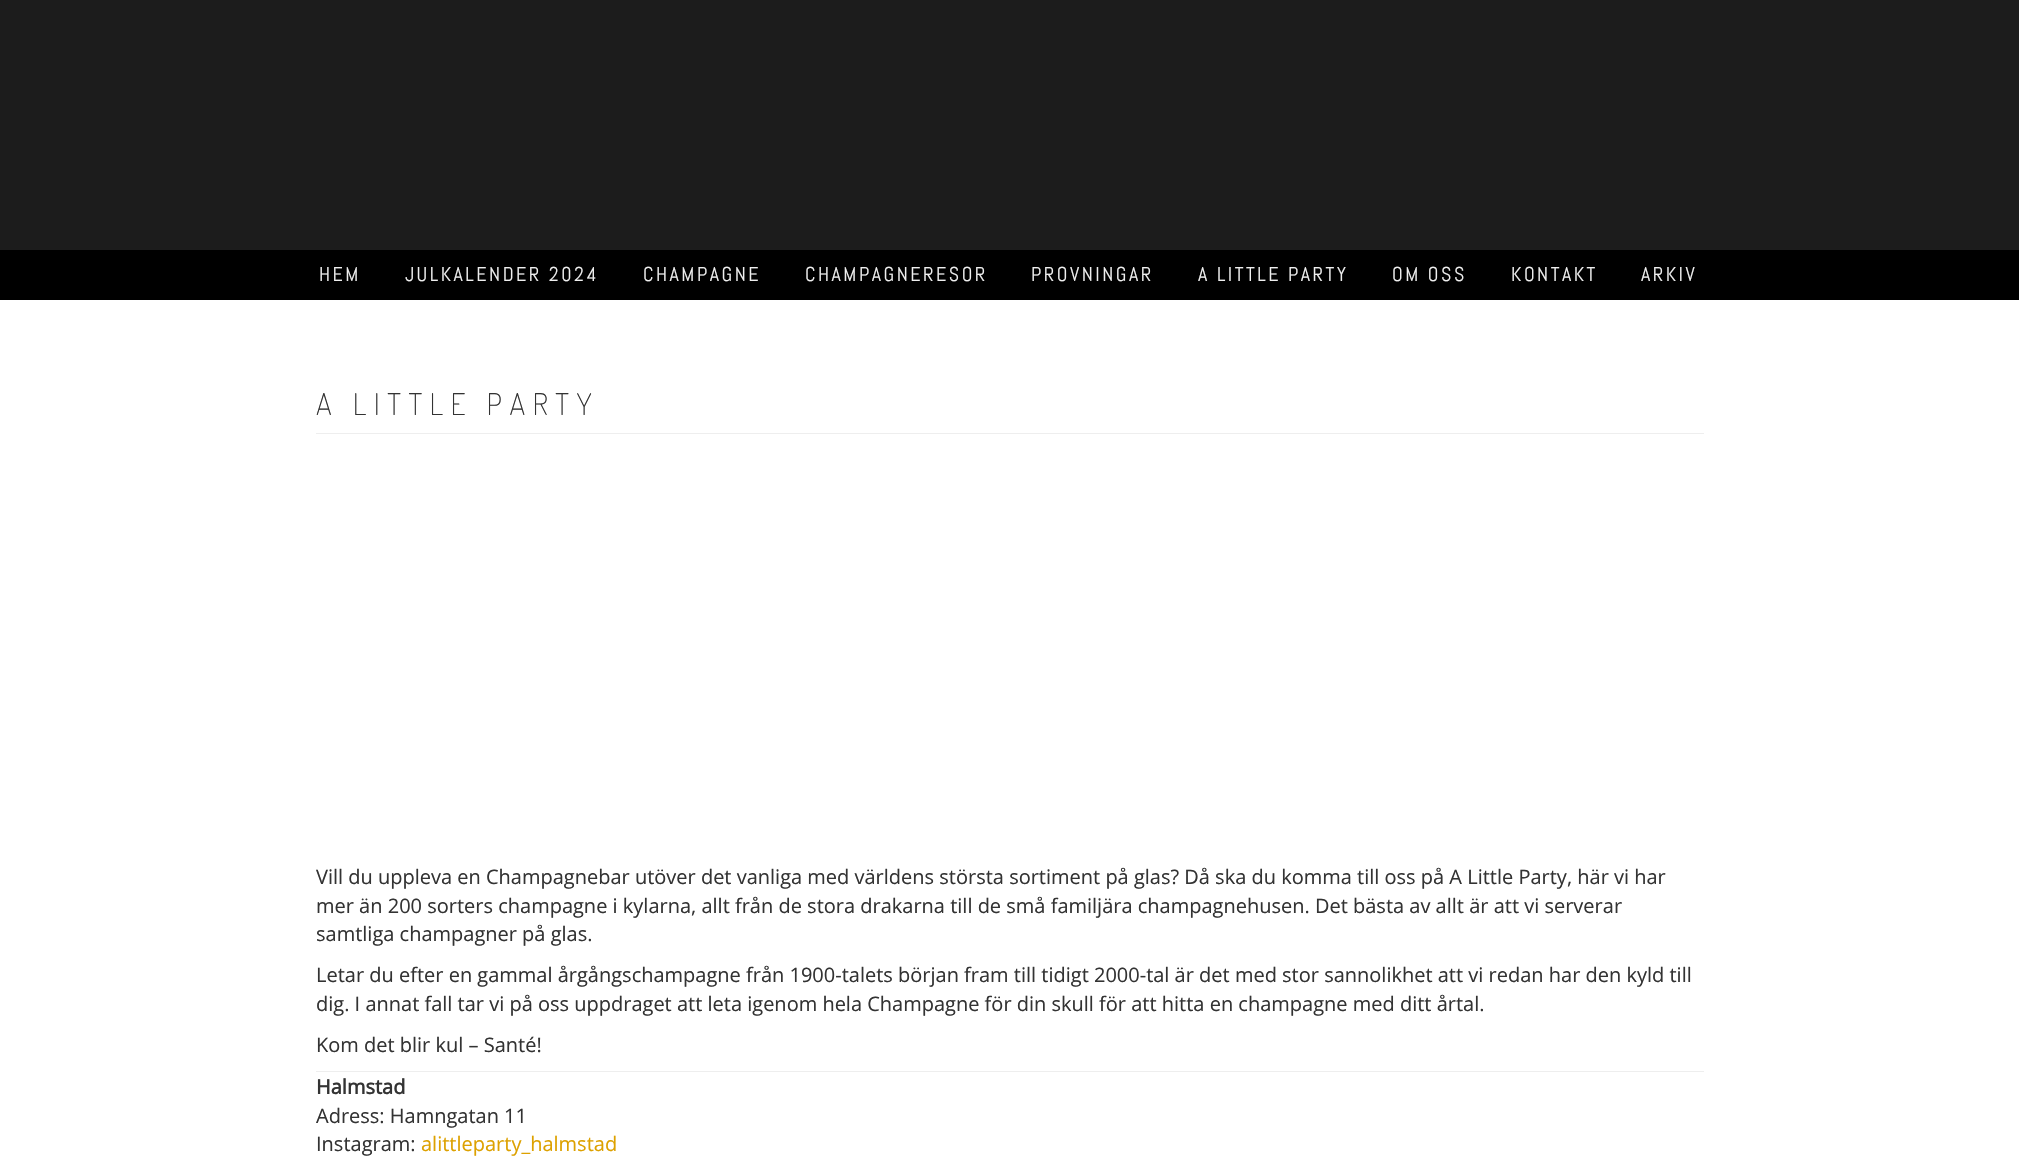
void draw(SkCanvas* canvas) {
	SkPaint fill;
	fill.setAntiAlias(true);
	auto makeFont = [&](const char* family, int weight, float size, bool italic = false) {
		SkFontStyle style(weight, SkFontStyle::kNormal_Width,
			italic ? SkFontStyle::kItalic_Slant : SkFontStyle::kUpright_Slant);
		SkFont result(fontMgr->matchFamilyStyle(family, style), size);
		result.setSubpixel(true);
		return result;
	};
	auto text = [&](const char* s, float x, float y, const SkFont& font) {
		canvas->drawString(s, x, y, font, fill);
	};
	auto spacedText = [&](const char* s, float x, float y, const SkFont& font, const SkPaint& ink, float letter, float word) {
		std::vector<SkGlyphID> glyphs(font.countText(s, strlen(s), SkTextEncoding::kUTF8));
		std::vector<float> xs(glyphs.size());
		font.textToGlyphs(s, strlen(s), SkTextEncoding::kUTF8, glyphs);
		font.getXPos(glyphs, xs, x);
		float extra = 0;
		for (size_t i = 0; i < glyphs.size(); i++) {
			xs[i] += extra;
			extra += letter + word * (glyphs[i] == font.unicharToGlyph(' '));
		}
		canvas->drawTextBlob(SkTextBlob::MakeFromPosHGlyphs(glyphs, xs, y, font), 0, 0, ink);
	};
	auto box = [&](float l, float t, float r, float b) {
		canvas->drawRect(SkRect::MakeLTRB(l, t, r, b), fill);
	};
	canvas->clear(0xFFFFFFFF);
	fill.setColor(0xFF1C1C1C);
	box(0, 0, 2019, 250);
	fill.setColor(0xFF000000);
	box(0, 250, 2019, 300);
	fill.setColor(0xFFEEEEEE);
	box(316, 433, 1704, 434);
	box(316, 1071, 1704, 1072);
	auto font1 = makeFont("Abel", 400, 20);
	fill.setColor(0xFFEFEFEF);
	spacedText("HEM", 319, 281, font1, fill, 2.5f, 0);
	spacedText("JULKALENDER 2024", 405, 281, font1, fill, 2.5f, 0);
	spacedText("CHAMPAGNE", 643, 281, font1, fill, 2.5f, 0);
	spacedText("CHAMPAGNERESOR", 805, 281, font1, fill, 2.5f, 0);
	spacedText("PROVNINGAR", 1031, 281, font1, fill, 2.5f, 0);
	spacedText("A LITTLE PARTY", 1198, 281, font1, fill, 2.5f, 0);
	spacedText("OM OSS", 1392, 281, font1, fill, 2.5f, 0);
	spacedText("KONTAKT", 1511, 281, font1, fill, 2.5f, 0);
	spacedText("ARKIV", 1641, 281, font1, fill, 2.5f, 0);
	auto font2 = makeFont("Dosis", 200, 30);
	fill.setColor(0xFF333333);
	spacedText("A LITTLE PARTY", 316, 415, font2, fill, 7.5f, 0);
	auto font3 = makeFont("Open Sans", 400, 20);
	text("Vill du uppleva en Champagnebar utöver det vanliga med världens största sortiment på glas? Då ska du komma till oss på A Little Party, här vi har", 316, 884, font3);
	text("mer än 200 sorters champagne i kylarna, allt från de stora drakarna till de små familjära champagnehusen. Det bästa av allt är att vi serverar", 316, 913, font3);
	text("samtliga champagner på glas.", 316, 941, font3);
	text("Letar du efter en gammal årgångschampagne från 1900-talets början fram till tidigt 2000-tal är det med stor sannolikhet att vi redan har den kyld till", 316, 982, font3);
	text("dig. I annat fall tar vi på oss uppdraget att leta igenom hela Champagne för din skull för att hitta en champagne med ditt årtal.", 316, 1011, font3);
	text("Kom det blir kul – Santé!", 316, 1052, font3);
	auto font4 = makeFont("Open Sans", 700, 20);
	text("Halmstad", 316, 1094, font4);
	text("Adress: Hamngatan 11", 316, 1123, font3);
	text("Instagram:", 316, 1151, font3);
	fill.setColor(0xFFDDA100);
	text("alittleparty_halmstad", 421, 1151, font3);
}
